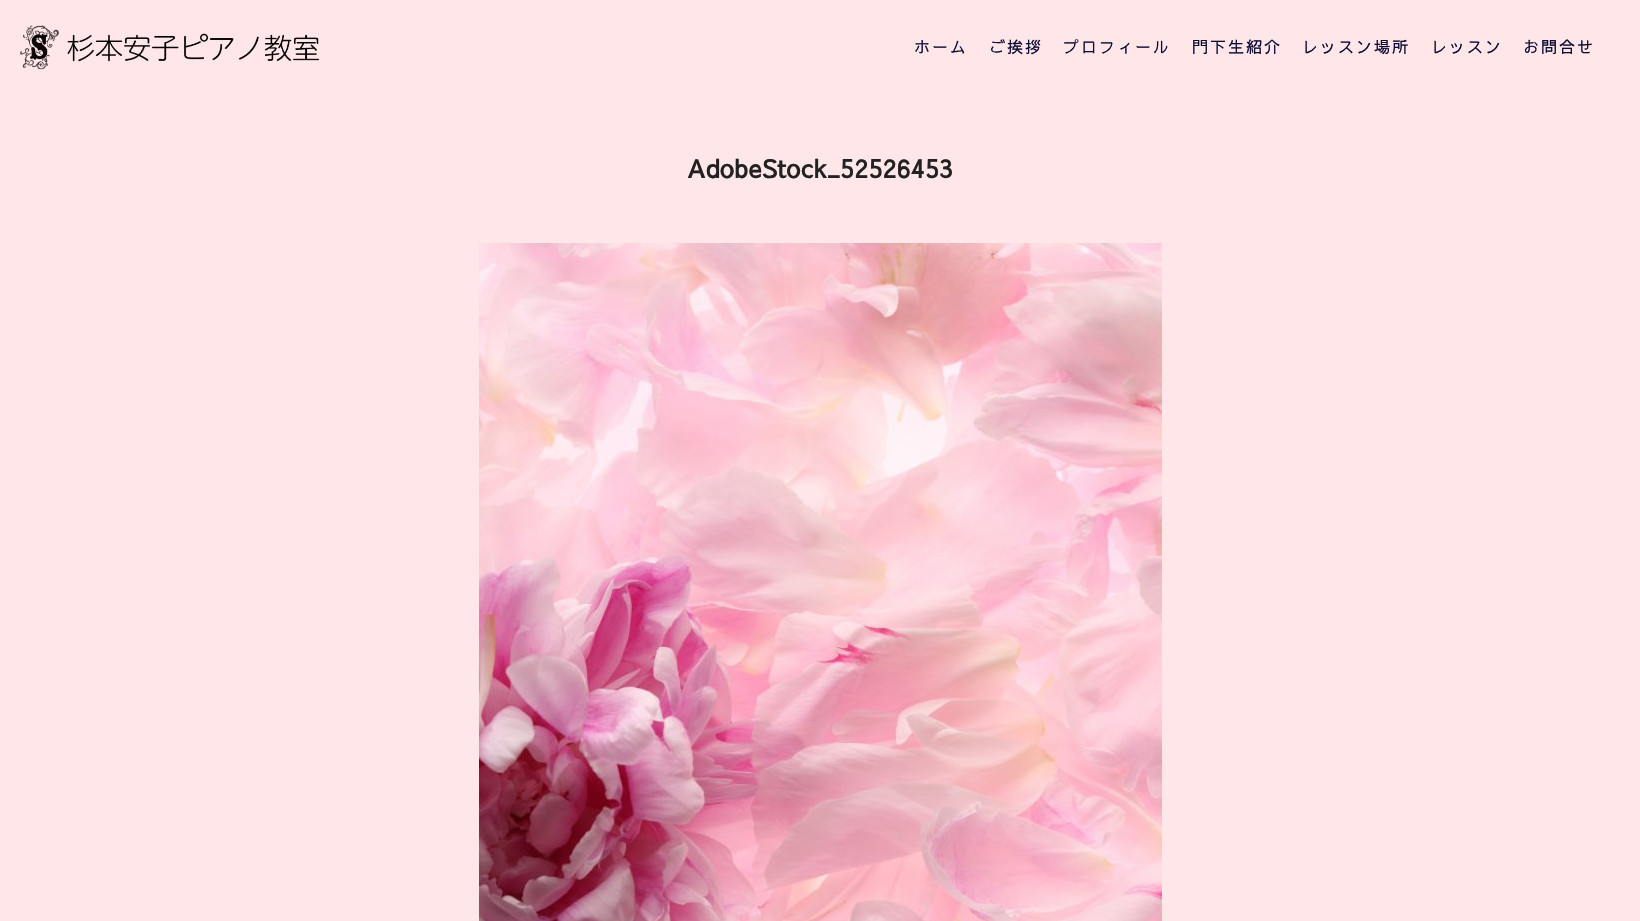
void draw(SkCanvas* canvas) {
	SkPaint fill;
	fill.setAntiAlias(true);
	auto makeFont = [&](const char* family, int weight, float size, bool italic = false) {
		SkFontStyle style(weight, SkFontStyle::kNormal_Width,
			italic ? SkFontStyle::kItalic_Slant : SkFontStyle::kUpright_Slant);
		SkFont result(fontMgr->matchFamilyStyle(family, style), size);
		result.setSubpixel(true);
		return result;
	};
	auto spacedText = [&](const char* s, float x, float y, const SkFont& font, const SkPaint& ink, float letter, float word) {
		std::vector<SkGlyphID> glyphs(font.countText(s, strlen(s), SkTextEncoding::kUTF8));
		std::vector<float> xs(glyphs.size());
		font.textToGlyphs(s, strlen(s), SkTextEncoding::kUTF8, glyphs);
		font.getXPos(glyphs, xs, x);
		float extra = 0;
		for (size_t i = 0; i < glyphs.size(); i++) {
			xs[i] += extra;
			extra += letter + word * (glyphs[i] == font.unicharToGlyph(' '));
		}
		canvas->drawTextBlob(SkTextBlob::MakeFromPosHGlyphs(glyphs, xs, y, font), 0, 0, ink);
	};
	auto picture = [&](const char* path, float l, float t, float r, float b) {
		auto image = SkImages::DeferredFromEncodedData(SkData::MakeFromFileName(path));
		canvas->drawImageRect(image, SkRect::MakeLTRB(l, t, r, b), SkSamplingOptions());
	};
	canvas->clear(0xFFFFE6E8);
	picture("image0.png", 20, 25, 320, 70);
	picture("image1.png", 479, 243, 1162, 921);
	auto font1 = makeFont("Sawarabi Gothic", 400, 16);
	fill.setColor(0xFF0B0B33);
	spacedText("ホーム", 914, 53, font1, fill, 2, 0);
	spacedText("ご挨拶", 989, 53, font1, fill, 2, 0);
	spacedText("プロフィール", 1063, 53, font1, fill, 2, 0);
	spacedText("門下生紹介", 1192, 53, font1, fill, 2, 0);
	spacedText("レッスン場所", 1302, 53, font1, fill, 2, 0);
	spacedText("レッスン", 1431, 53, font1, fill, 2, 0);
	spacedText("お問合せ", 1523, 53, font1, fill, 2, 0);
	auto font2 = makeFont("Sawarabi Gothic", 700, 25);
	fill.setColor(0xFF222222);
	spacedText("AdobeStock_52526453", 687, 178, font2, fill, 0.4f, 0);
}
